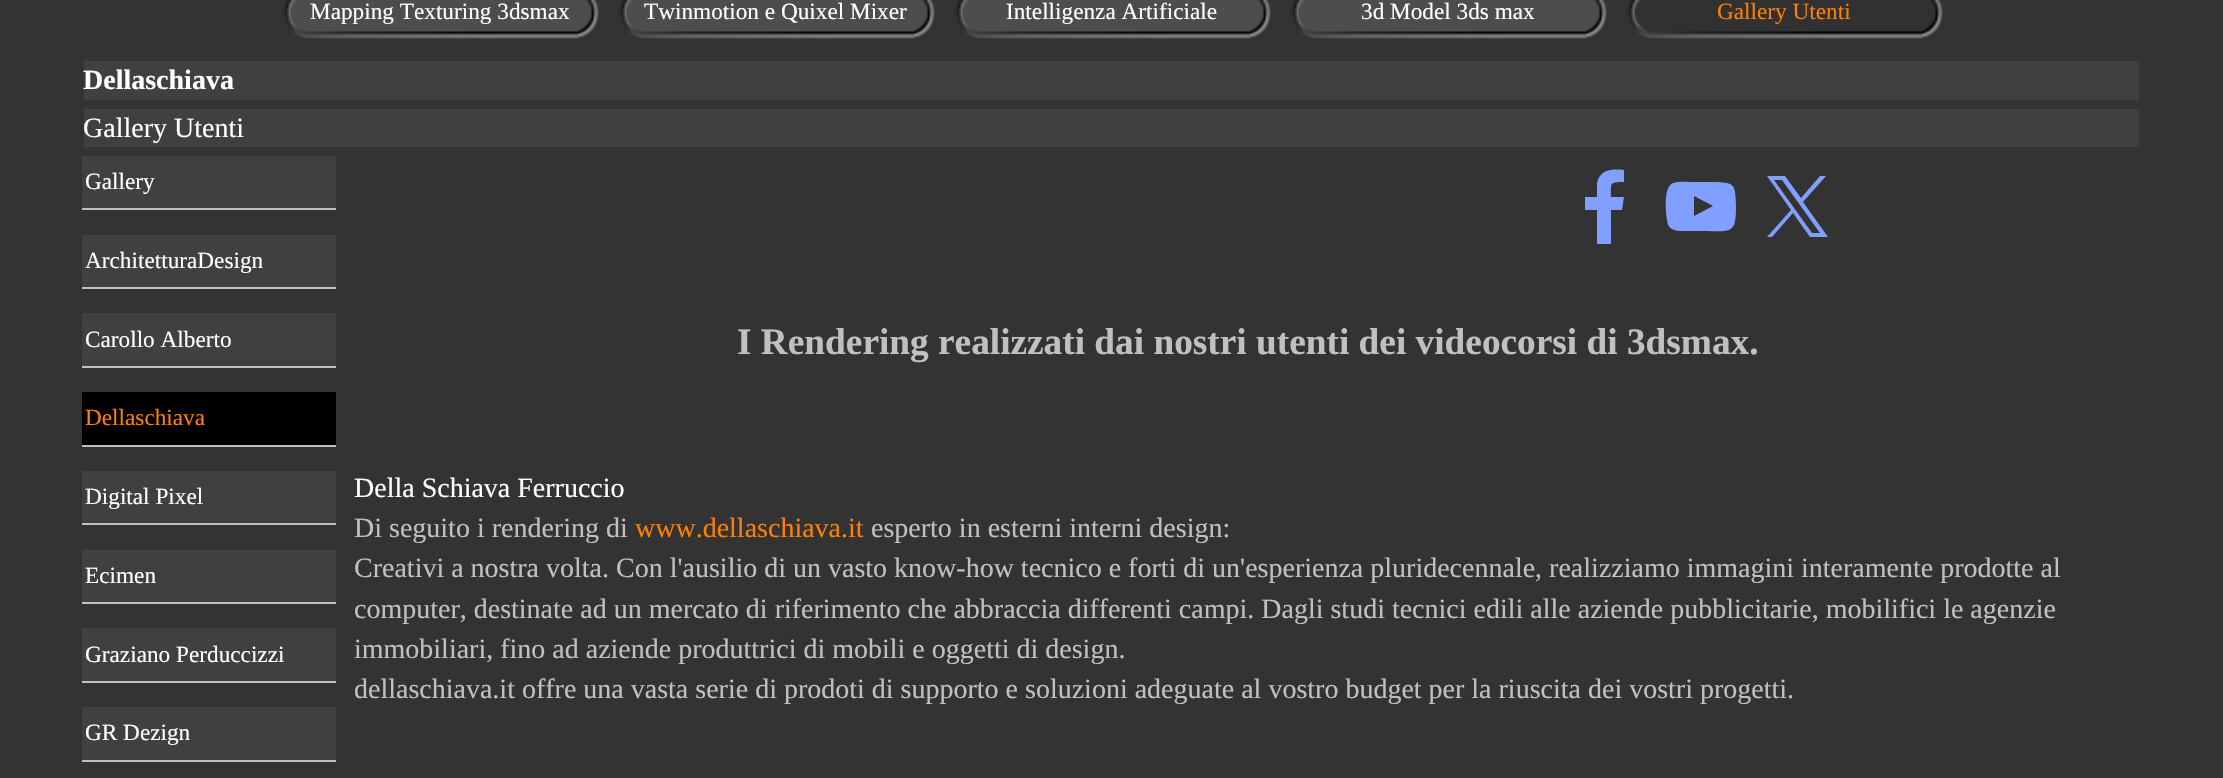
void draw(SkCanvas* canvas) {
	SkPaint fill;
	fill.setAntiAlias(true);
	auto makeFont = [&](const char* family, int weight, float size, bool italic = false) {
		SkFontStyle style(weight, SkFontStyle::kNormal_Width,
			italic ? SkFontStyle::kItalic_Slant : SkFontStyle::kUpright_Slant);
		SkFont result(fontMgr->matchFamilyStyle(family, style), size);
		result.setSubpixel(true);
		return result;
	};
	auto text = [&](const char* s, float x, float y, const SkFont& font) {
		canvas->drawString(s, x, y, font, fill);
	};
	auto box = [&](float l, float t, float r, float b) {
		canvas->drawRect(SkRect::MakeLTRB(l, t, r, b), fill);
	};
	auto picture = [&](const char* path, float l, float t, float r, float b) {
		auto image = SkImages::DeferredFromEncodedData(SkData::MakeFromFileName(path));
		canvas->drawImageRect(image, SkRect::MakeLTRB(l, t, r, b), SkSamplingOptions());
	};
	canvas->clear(0xFF333333);
	picture("image0.png", 283, 0, 599, 39);
	picture("image1.png", 619, 0, 935, 39);
	picture("image2.png", 955, 0, 1271, 39);
	picture("image0.png", 1291, 0, 1607, 39);
	picture("image3.png", 1627, 0, 1943, 39);
	fill.setColor(0xFF404040);
	box(84, 61, 2139, 100);
	box(84, 109, 2139, 147);
	box(82, 156, 336, 208);
	fill.setColor(0xFFC0C0C0);
	box(82, 208, 336, 210);
	fill.setColor(0xFF404040);
	box(82, 235, 336, 287);
	fill.setColor(0xFFC0C0C0);
	box(82, 287, 336, 289);
	fill.setColor(0xFF404040);
	box(82, 313, 336, 366);
	fill.setColor(0xFFC0C0C0);
	box(82, 366, 336, 368);
	fill.setColor(0xFF000000);
	box(82, 392, 336, 445);
	fill.setColor(0xFFC0C0C0);
	box(82, 445, 336, 447);
	fill.setColor(0xFF404040);
	box(82, 471, 336, 523);
	fill.setColor(0xFFC0C0C0);
	box(82, 523, 336, 525);
	fill.setColor(0xFF404040);
	box(82, 550, 336, 602);
	fill.setColor(0xFFC0C0C0);
	box(82, 602, 336, 604);
	fill.setColor(0xFF404040);
	box(82, 628, 336, 681);
	fill.setColor(0xFFC0C0C0);
	box(82, 681, 336, 683);
	fill.setColor(0xFF404040);
	box(82, 707, 336, 760);
	fill.setColor(0xFFC0C0C0);
	box(82, 760, 336, 762);
	fill.setColor(0xFF809FFF);
	canvas->drawPath(SkPathBuilder().moveTo(1611, 244).lineTo(1611, 210).lineTo(1622, 210).lineTo(1624, 197).lineTo(1611, 197).cubicTo(1611, 183, 1609, 182, 1624, 182).lineTo(1624, 170).cubicTo(1613, 169, 1600, 169, 1597, 183).lineTo(1597, 197).lineTo(1585, 197).lineTo(1585, 210).lineTo(1597, 210).lineTo(1597, 244).close().detach(), fill);
	canvas->drawPath(SkPathBuilder().moveTo(1735, 192).cubicTo(1734, 182, 1726, 183, 1718, 182).lineTo(1696, 182).cubicTo(1690, 182, 1678, 181, 1673, 183).cubicTo(1663, 187, 1666, 212, 1667, 220).cubicTo(1668, 232, 1678, 231, 1687, 231).lineTo(1706, 231).cubicTo(1712, 231, 1724, 232, 1729, 230).cubicTo(1731, 229, 1733, 227, 1734, 225).cubicTo(1737, 218, 1736, 200, 1735, 192).close().moveTo(1694, 216).lineTo(1694, 196).lineTo(1713, 206).close().detach(), fill);
	canvas->drawPath(SkPathBuilder().moveTo(1803, 202).lineTo(1826, 176).lineTo(1820, 176).lineTo(1801, 198).lineTo(1785, 176).lineTo(1767, 176).lineTo(1791, 210).lineTo(1767, 237).lineTo(1772, 237).lineTo(1793, 213).lineTo(1810, 237).lineTo(1828, 237).moveTo(1774, 180).lineTo(1782, 180).lineTo(1820, 233).lineTo(1812, 233).detach(), fill);
	auto font1 = makeFont("Liberation Serif", 400, 23.25f);
	fill.setColor(0xFFFFFFFF);
	text("Mapping Texturing 3dsmax", 310, 19, font1);
	text("Twinmotion e Quixel Mixer", 644, 19, font1);
	text("Intelligenza Artificiale", 1006, 19, font1);
	text("3d Model 3ds max", 1361, 19, font1);
	fill.setColor(0xFFFF8000);
	text("Gallery Utenti", 1717, 19, font1);
	auto font2 = makeFont("Liberation Serif", 700, 28);
	fill.setColor(0xFFFFFFFF);
	text("Dellaschiava", 83, 89, font2);
	auto font3 = makeFont("Liberation Serif", 400, 28);
	text("Gallery Utenti", 83, 137, font3);
	text("Gallery", 85, 189, font1);
	text("ArchitetturaDesign", 85, 268, font1);
	text("Carollo Alberto", 85, 347, font1);
	fill.setColor(0xFFFF8000);
	text("Dellaschiava", 85, 425, font1);
	fill.setColor(0xFFFFFFFF);
	text("Digital Pixel", 85, 504, font1);
	text("Ecimen", 85, 583, font1);
	text("Graziano Perduccizzi", 85, 662, font1);
	text("GR Dezign", 85, 740, font1);
	auto font4 = makeFont("Liberation Serif", 700, 37.3f);
	fill.setColor(0xFFC0C0C0);
	text("I Rendering realizzati dai nostri utenti dei videocorsi di 3dsmax.", 737, 354, font4);
	fill.setColor(0xFFFFFFFF);
	text("Della Schiava Ferruccio", 354, 497, font3);
	fill.setColor(0xFFC0C0C0);
	text("Di seguito i rendering di", 354, 537, font3);
	fill.setColor(0xFFFF8000);
	text("www.dellaschiava.it", 635, 537, font3);
	fill.setColor(0xFFC0C0C0);
	text("esperto in esterni interni design:", 871, 537, font3);
	text("Creativi a nostra volta. Con l'ausilio di un vasto know-how tecnico e forti di un'esperienza pluridecennale, realizziamo immagini interamente prodotte al", 354, 577, font3);
	text("computer, destinate ad un mercato di riferimento che abbraccia differenti campi. Dagli studi tecnici edili alle aziende pubblicitarie, mobilifici le agenzie", 354, 618, font3);
	text("immobiliari, fino ad aziende produttrici di mobili e oggetti di design.", 354, 658, font3);
	text("dellaschiava.it offre una vasta serie di prodoti di supporto e soluzioni adeguate al vostro budget per la riuscita dei vostri progetti.", 354, 698, font3);
}
